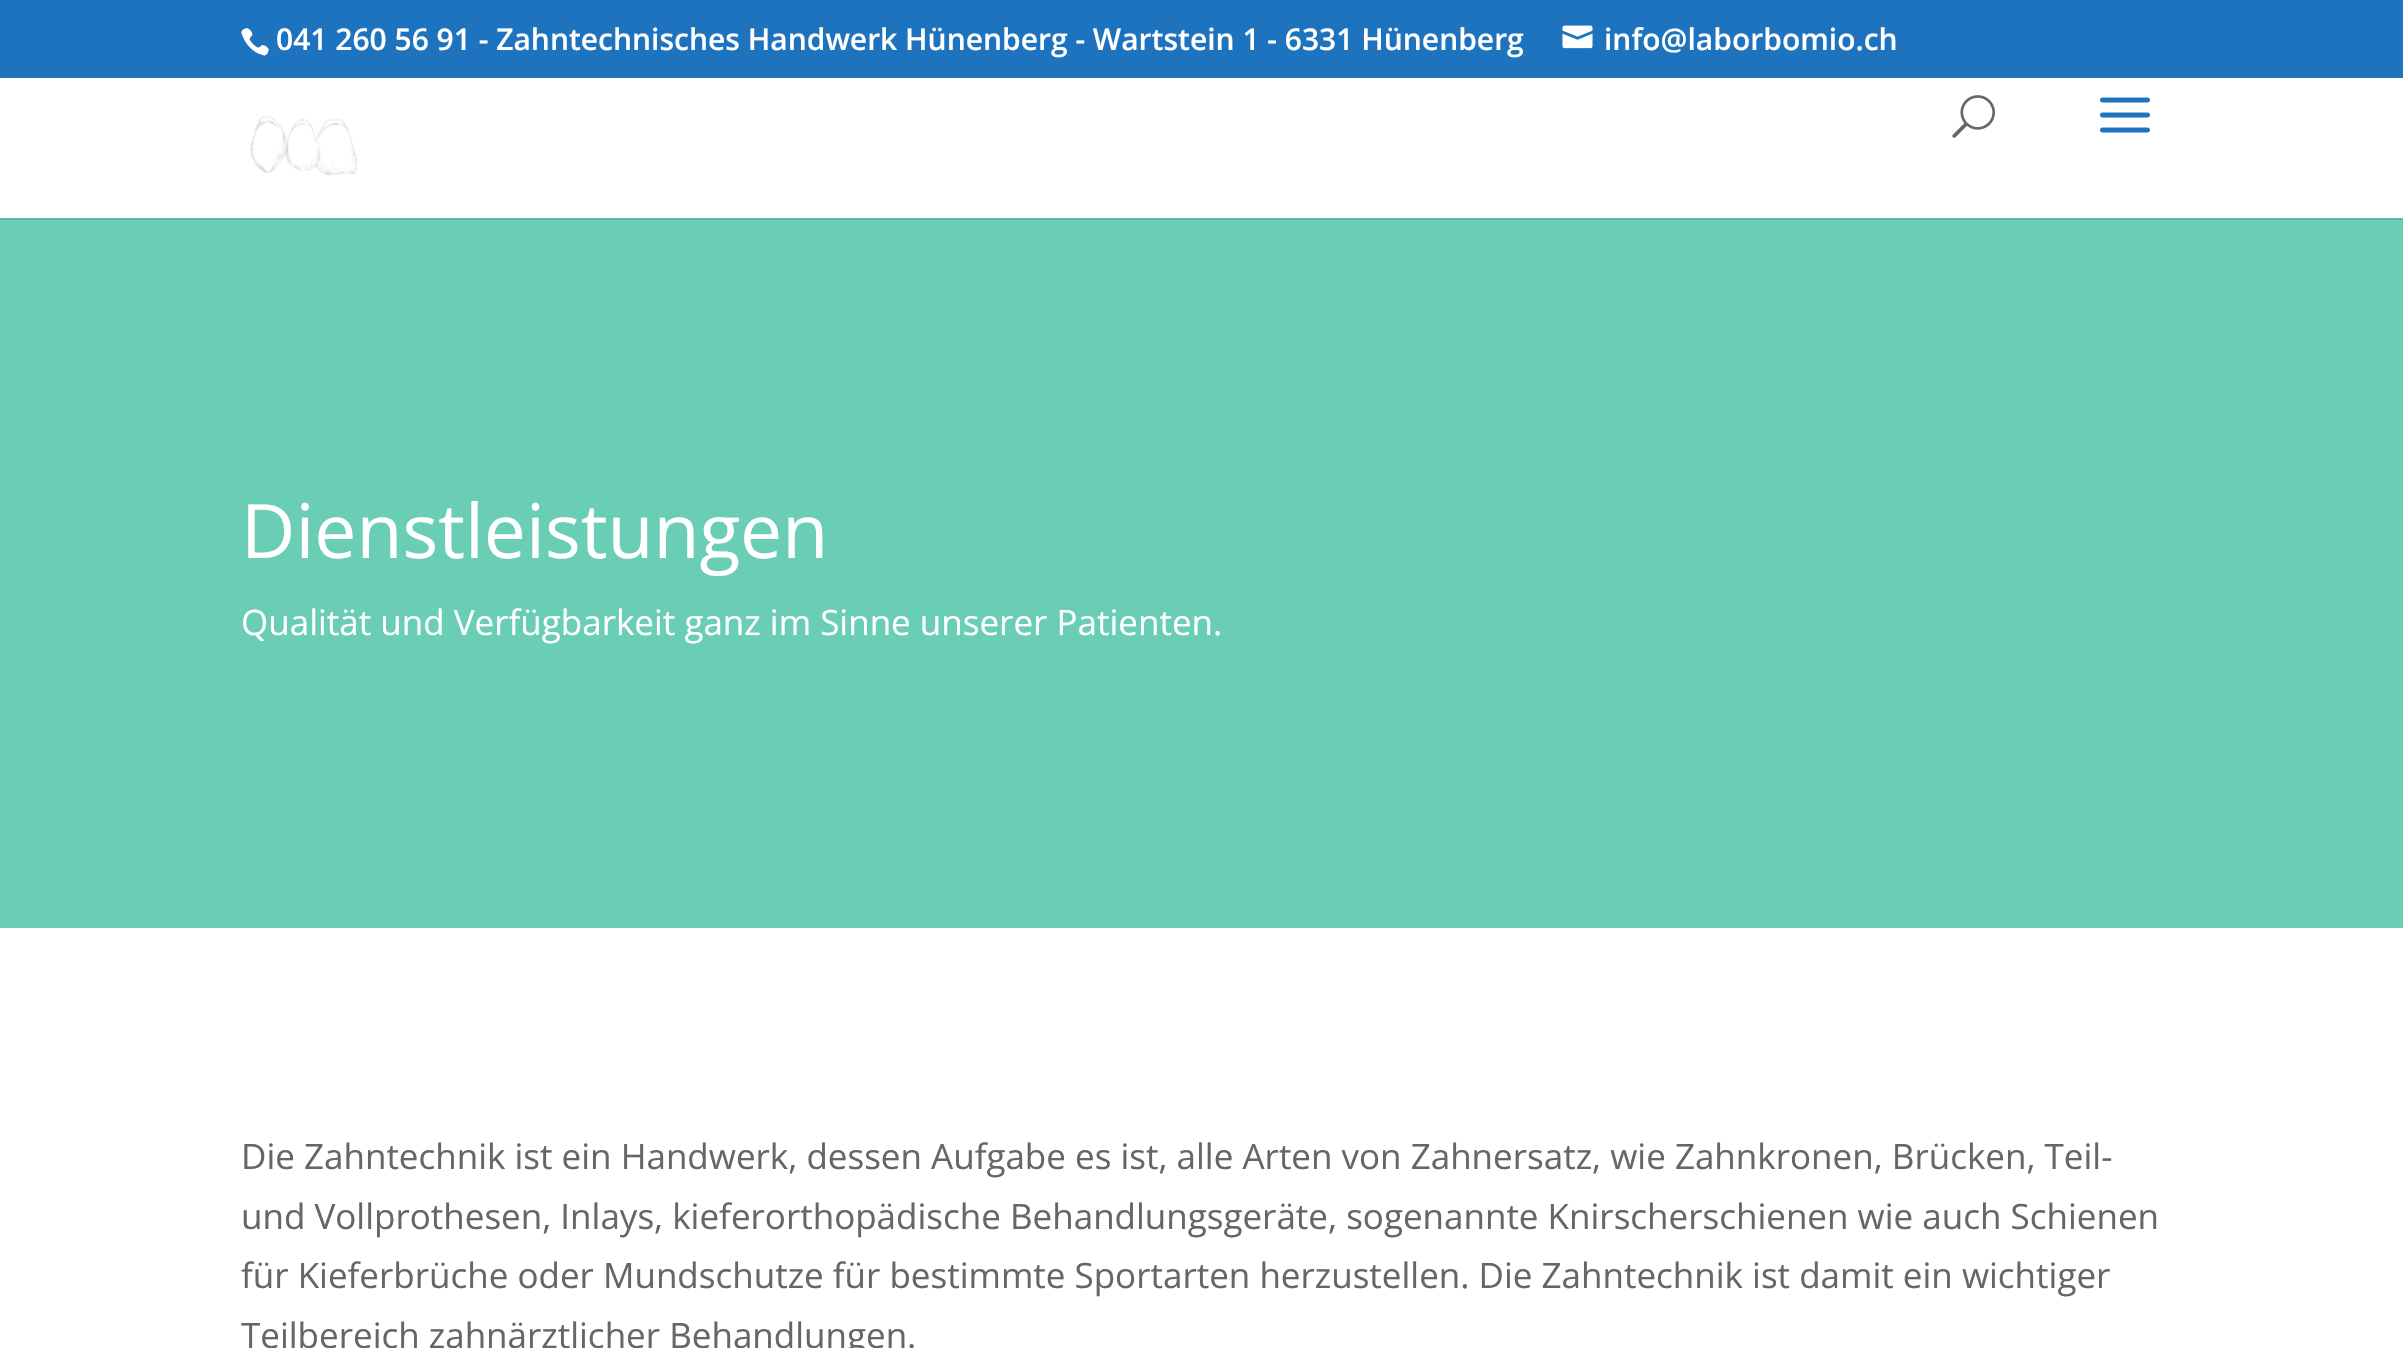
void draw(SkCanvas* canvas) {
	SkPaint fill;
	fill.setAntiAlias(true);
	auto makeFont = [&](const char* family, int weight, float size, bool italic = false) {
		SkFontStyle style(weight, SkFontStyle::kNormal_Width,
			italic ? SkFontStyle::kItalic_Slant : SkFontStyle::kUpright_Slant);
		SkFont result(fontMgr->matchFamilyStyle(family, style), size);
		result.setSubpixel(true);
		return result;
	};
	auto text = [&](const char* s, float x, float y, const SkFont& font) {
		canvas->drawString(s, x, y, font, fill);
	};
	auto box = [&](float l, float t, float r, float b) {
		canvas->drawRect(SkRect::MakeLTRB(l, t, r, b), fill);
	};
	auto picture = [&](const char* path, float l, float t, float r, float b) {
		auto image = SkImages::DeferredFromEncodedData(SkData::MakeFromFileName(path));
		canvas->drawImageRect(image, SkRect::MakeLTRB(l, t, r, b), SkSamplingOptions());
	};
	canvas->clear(0xFFFFFFFF);
	fill.setColor(0xFF1E73BE);
	box(0, 0, 2403, 78);
	picture("image0.png", 241, 28, 269, 56);
	picture("image1.png", 1562, 25, 1593, 49);
	fill.setColor(0xFF5FB9A4);
	box(0, 218, 2403, 220);
	picture("image2.png", 250, 116, 358, 176);
	picture("image3.png", 1952, 95, 1995, 138);
	picture("image4.png", 2100, 97, 2150, 133);
	fill.setColor(0xFF6ACEB6);
	box(0, 220, 2403, 928);
	auto font1 = makeFont("Open Sans", 600, 30);
	fill.setColor(0xFFFFFFFF);
	text("041 260 56 91 - Zahntechnisches Handwerk Hünenberg - Wartstein 1 - 6331 Hünenberg", 276, 50, font1);
	text("info@laborbomio.ch", 1604, 50, font1);
	auto font2 = makeFont("Open Sans", 400, 75);
	text("Dienstleistungen", 241, 558, font2);
	auto font3 = makeFont("Open Sans", 400, 35);
	text("Qualität und Verfügbarkeit ganz im Sinne unserer Patienten.", 241, 635, font3);
	fill.setColor(0xFF666666);
	text("Die Zahntechnik ist ein Handwerk, dessen Aufgabe es ist, alle Arten von Zahnersatz, wie Zahnkronen, Brücken, Teil-", 241, 1169, font3);
	text("und Vollprothesen, Inlays, kieferorthopädische Behandlungsgeräte, sogenannte Knirscherschienen wie auch Schienen", 241, 1229, font3);
	text("für Kieferbrüche oder Mundschutze für bestimmte Sportarten herzustellen. Die Zahntechnik ist damit ein wichtiger", 241, 1288, font3);
	text("Teilbereich zahnärztlicher Behandlungen.", 241, 1348, font3);
}
